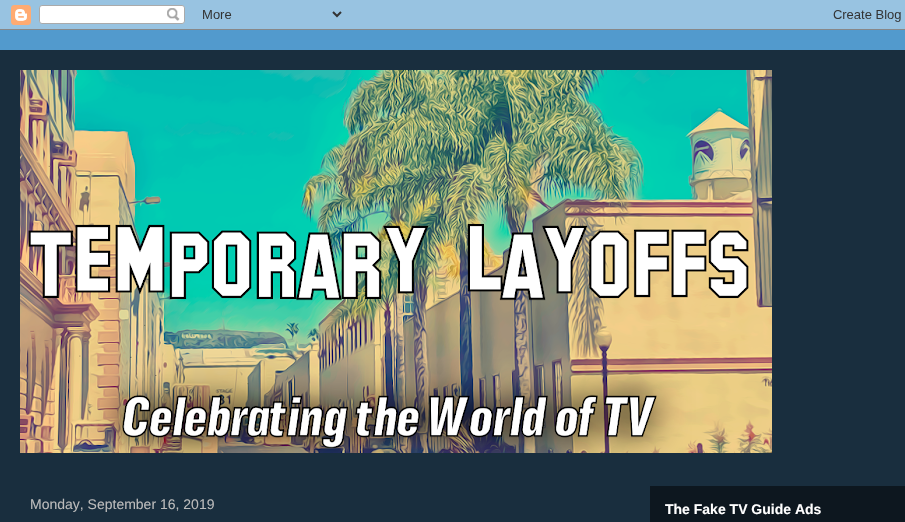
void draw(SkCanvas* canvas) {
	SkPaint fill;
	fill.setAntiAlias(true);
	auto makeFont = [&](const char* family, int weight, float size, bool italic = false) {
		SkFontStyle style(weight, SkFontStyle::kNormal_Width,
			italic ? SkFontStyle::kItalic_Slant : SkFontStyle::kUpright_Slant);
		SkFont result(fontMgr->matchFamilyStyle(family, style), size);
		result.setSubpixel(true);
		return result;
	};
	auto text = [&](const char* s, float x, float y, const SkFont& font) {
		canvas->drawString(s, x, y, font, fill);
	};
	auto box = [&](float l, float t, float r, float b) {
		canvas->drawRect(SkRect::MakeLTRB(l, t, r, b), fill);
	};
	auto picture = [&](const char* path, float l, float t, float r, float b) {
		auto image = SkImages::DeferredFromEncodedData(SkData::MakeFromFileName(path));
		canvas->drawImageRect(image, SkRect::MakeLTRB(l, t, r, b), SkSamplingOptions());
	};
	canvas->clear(0xFF529ACD);
	picture("image0.png", 0, 0, 905, 30);
	fill.setColor(0xFF192E3E);
	box(0, 50, 905, 522);
	picture("image1.png", 20, 70, 772, 453);
	fill.setColor(0xFF0D171F);
	box(650, 486, 905, 522);
	auto font1 = makeFont("Liberation Sans", 400, 14);
	fill.setColor(0xFFBBBBBB);
	text("Monday, September 16, 2019", 30, 509, font1);
	auto font2 = makeFont("Liberation Sans", 700, 14);
	fill.setColor(0xFFFFFFFF);
	text("The Fake TV Guide Ads", 665, 514, font2);
}
